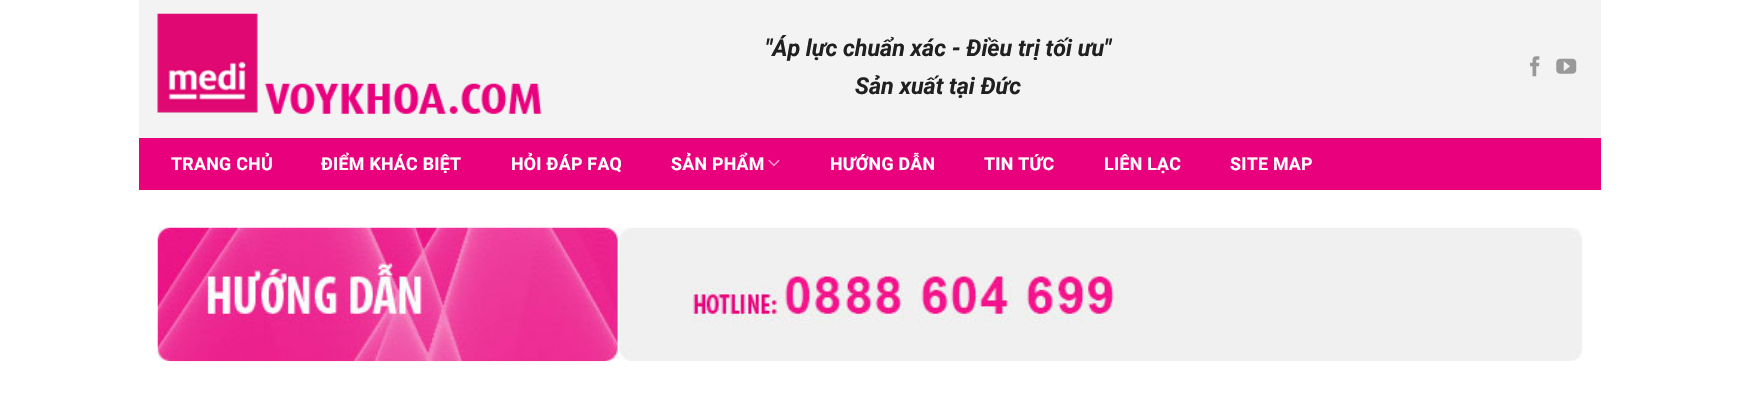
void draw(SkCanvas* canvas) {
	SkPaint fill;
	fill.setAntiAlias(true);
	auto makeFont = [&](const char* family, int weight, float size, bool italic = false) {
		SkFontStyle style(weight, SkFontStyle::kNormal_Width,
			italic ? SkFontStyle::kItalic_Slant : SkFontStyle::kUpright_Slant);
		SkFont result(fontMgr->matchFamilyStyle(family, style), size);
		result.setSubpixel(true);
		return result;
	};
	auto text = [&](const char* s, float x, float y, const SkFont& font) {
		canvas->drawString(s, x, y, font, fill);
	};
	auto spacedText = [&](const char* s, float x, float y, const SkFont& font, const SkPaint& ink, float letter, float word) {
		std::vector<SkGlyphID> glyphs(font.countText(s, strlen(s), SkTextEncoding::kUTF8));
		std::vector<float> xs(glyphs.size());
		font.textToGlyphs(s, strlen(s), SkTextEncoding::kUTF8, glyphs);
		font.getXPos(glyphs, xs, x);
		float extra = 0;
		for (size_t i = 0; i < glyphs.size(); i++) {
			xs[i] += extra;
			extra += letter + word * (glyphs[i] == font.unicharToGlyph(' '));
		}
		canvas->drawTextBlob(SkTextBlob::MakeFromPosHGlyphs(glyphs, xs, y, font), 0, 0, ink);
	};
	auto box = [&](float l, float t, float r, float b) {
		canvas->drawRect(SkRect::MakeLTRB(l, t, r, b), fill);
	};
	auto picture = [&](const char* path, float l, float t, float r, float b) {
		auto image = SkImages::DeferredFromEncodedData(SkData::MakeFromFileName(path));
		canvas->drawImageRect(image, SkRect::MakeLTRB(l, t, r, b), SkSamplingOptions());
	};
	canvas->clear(0xFFFFFFFF);
	fill.setColor(0xFFF3F3F3);
	box(139, 0, 1601, 138);
	picture("image0.png", 157, 13, 542, 114);
	picture("image1.png", 1530, 56, 1540, 77);
	picture("image2.png", 1556, 58, 1577, 74);
	fill.setColor(0xFFE9007D);
	box(139, 138, 1601, 190);
	fill.setColor(0xFFD50374);
	box(158, 138, 1583, 139);
	picture("image3.png", 768, 159, 780, 167);
	picture("image4.png", 157, 227, 1583, 362);
	auto font1 = makeFont("Roboto", 700, 23.3f, true);
	fill.setColor(0xFF212020);
	text("\"Áp lực chuẩn xác - Điều trị tối ưu\"", 765, 56, font1);
	text("Sản xuất tại Đức", 855, 94, font1);
	auto font2 = makeFont("Roboto", 700, 17.75f);
	fill.setColor(0xFFFFFFFF);
	spacedText("TRANG CHỦ", 171, 170, font2, fill, 0.3f, 0);
	spacedText("ĐIỂM KHÁC BIỆT", 321, 170, font2, fill, 0.3f, 0);
	spacedText("HỎI ĐÁP FAQ", 511, 170, font2, fill, 0.3f, 0);
	spacedText("SẢN PHẨM", 671, 170, font2, fill, 0.3f, 0);
	spacedText("HƯỚNG DẪN", 830, 170, font2, fill, 0.3f, 0);
	spacedText("TIN TỨC", 984, 170, font2, fill, 0.3f, 0);
	spacedText("LIÊN LẠC", 1104, 170, font2, fill, 0.3f, 0);
	spacedText("SITE MAP", 1230, 170, font2, fill, 0.3f, 0);
}
